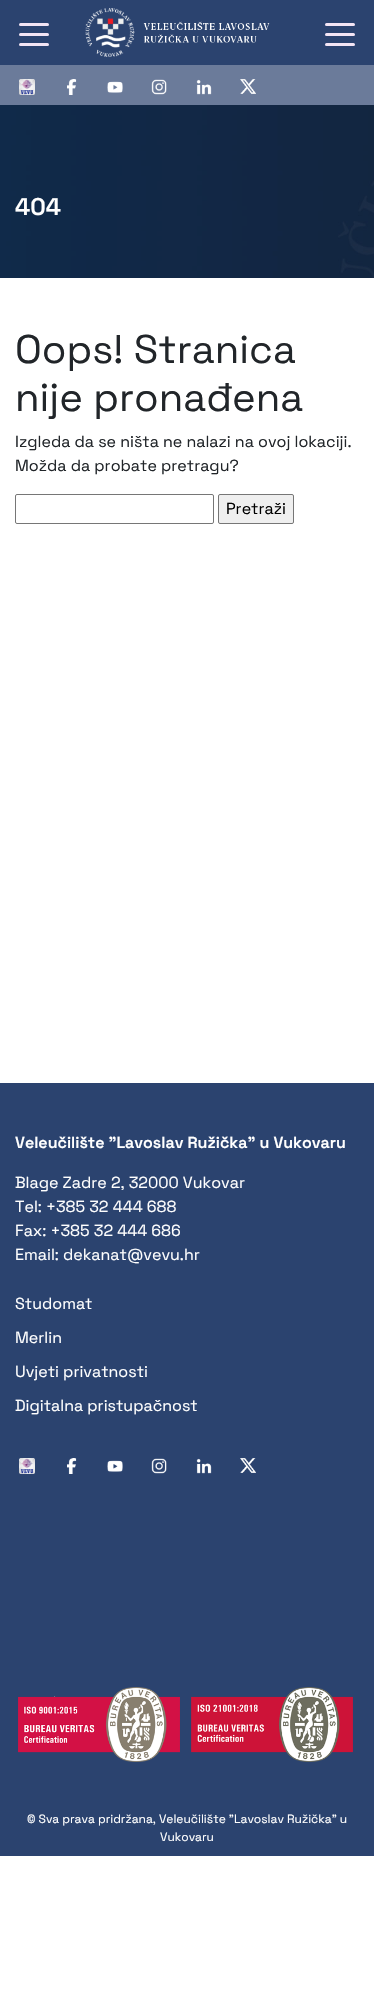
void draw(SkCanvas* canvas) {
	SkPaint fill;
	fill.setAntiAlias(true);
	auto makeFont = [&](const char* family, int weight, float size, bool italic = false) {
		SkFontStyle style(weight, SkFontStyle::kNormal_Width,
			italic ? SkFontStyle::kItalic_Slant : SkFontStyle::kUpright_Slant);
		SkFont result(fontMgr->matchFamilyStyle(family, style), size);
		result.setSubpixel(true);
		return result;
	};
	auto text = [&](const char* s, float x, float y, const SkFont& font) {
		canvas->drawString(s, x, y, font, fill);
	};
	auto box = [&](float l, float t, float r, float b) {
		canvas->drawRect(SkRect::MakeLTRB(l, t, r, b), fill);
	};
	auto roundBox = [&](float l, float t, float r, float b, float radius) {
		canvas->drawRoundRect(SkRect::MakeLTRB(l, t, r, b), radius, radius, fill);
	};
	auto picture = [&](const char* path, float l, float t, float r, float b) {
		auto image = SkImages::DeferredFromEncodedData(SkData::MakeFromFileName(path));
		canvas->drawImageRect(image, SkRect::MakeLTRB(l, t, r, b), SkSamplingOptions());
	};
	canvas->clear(0xFFFFFFFF);
	fill.setColor(0xFF2B436F);
	box(0, 0, 374, 65);
	fill.setColor(0xFFF3E5F5);
	roundBox(19, 23, 49, 26, 1.5f);
	roundBox(19, 33, 49, 36, 1.5f);
	roundBox(19, 43, 49, 46, 1.5f);
	picture("image0.png", 85, 8, 270, 57);
	roundBox(325, 23, 355, 26, 1.5f);
	roundBox(325, 33, 355, 36, 1.5f);
	roundBox(325, 43, 355, 46, 1.5f);
	fill.setColor(0xFF6B7B9A);
	box(0, 65, 374, 105);
	picture("image1.png", 19, 79, 35, 95);
	picture("image2.png", 67, 79, 77, 95);
	picture("image3.png", 107, 81, 123, 93);
	picture("image4.png", 151, 79, 167, 95);
	picture("image5.png", 196, 79, 212, 95);
	picture("image6.png", 240, 79, 256, 94);
	picture("image7.png", 0, 105, 374, 278);
	fill.setStyle(SkPaint::kStroke_Style);
	fill.setStrokeWidth(1);
	fill.setColor(0xFF767676);
	canvas->drawRoundRect(SkRect::MakeLTRB(15.5f, 494.5f, 213.5f, 523.5f), 1.5f, 1.5f, fill);
	fill.setStyle(SkPaint::kFill_Style);
	fill.setColor(0xFFEFEFEF);
	canvas->drawRoundRect(SkRect::MakeLTRB(218.5f, 494.5f, 293.5f, 523.5f), 1.5f, 1.5f, fill);
	fill.setStyle(SkPaint::kStroke_Style);
	fill.setColor(0xFF767676);
	canvas->drawRoundRect(SkRect::MakeLTRB(218.5f, 494.5f, 293.5f, 523.5f), 1.5f, 1.5f, fill);
	fill.setStyle(SkPaint::kFill_Style);
	fill.setColor(0xFF2B436F);
	box(0, 1083, 374, 1856);
	picture("image8.png", 19, 1458, 35, 1474);
	picture("image9.png", 67, 1458, 77, 1474);
	picture("image10.png", 107, 1460, 123, 1472);
	picture("image11.png", 151, 1458, 167, 1474);
	picture("image12.png", 196, 1458, 212, 1474);
	picture("image13.png", 240, 1458, 256, 1473);
	picture("image14.png", 18, 1687, 180, 1762);
	picture("image15.png", 191, 1687, 353, 1762);
	auto font1 = makeFont("Space Grotesk", 600, 24);
	fill.setColor(0xFFFFFFFF);
	text("404", 15, 215, font1);
	auto font2 = makeFont("Space Grotesk", 400, 40);
	fill.setColor(0xFF212529);
	text("Oops! Stranica", 15, 363, font2);
	text("nije pronađena", 15, 411, font2);
	auto font3 = makeFont("Space Grotesk", 400, 16);
	text("Izgleda da se ništa ne nalazi na ovoj lokaciji.", 15, 447, font3);
	text("Možda da probate pretragu?", 15, 471, font3);
	fill.setColor(0xFF000000);
	text("Pretraži", 226, 514, font3);
	auto font4 = makeFont("Space Grotesk", 600, 16);
	fill.setColor(0xFFFFFFFF);
	text("Veleučilište \"Lavoslav Ružička\" u Vukovaru", 15, 1148, font4);
	text("Blage Zadre 2, 32000 Vukovar", 15, 1188, font3);
	text("Tel: +385 32 444 688", 15, 1212, font3);
	text("Fax: +385 32 444 686", 15, 1236, font3);
	text("Email: dekanat@vevu.hr", 15, 1260, font3);
	text("Studomat", 15, 1309, font3);
	text("Merlin", 15, 1343, font3);
	text("Uvjeti privatnosti", 15, 1377, font3);
	text("Digitalna pristupačnost", 15, 1411, font3);
	auto font5 = makeFont("Space Grotesk", 400, 12);
	text("© Sva prava pridržana, Veleučilište \"Lavoslav Ružička\" u", 27, 1823, font5);
	text("Vukovaru", 160, 1841, font5);
}
